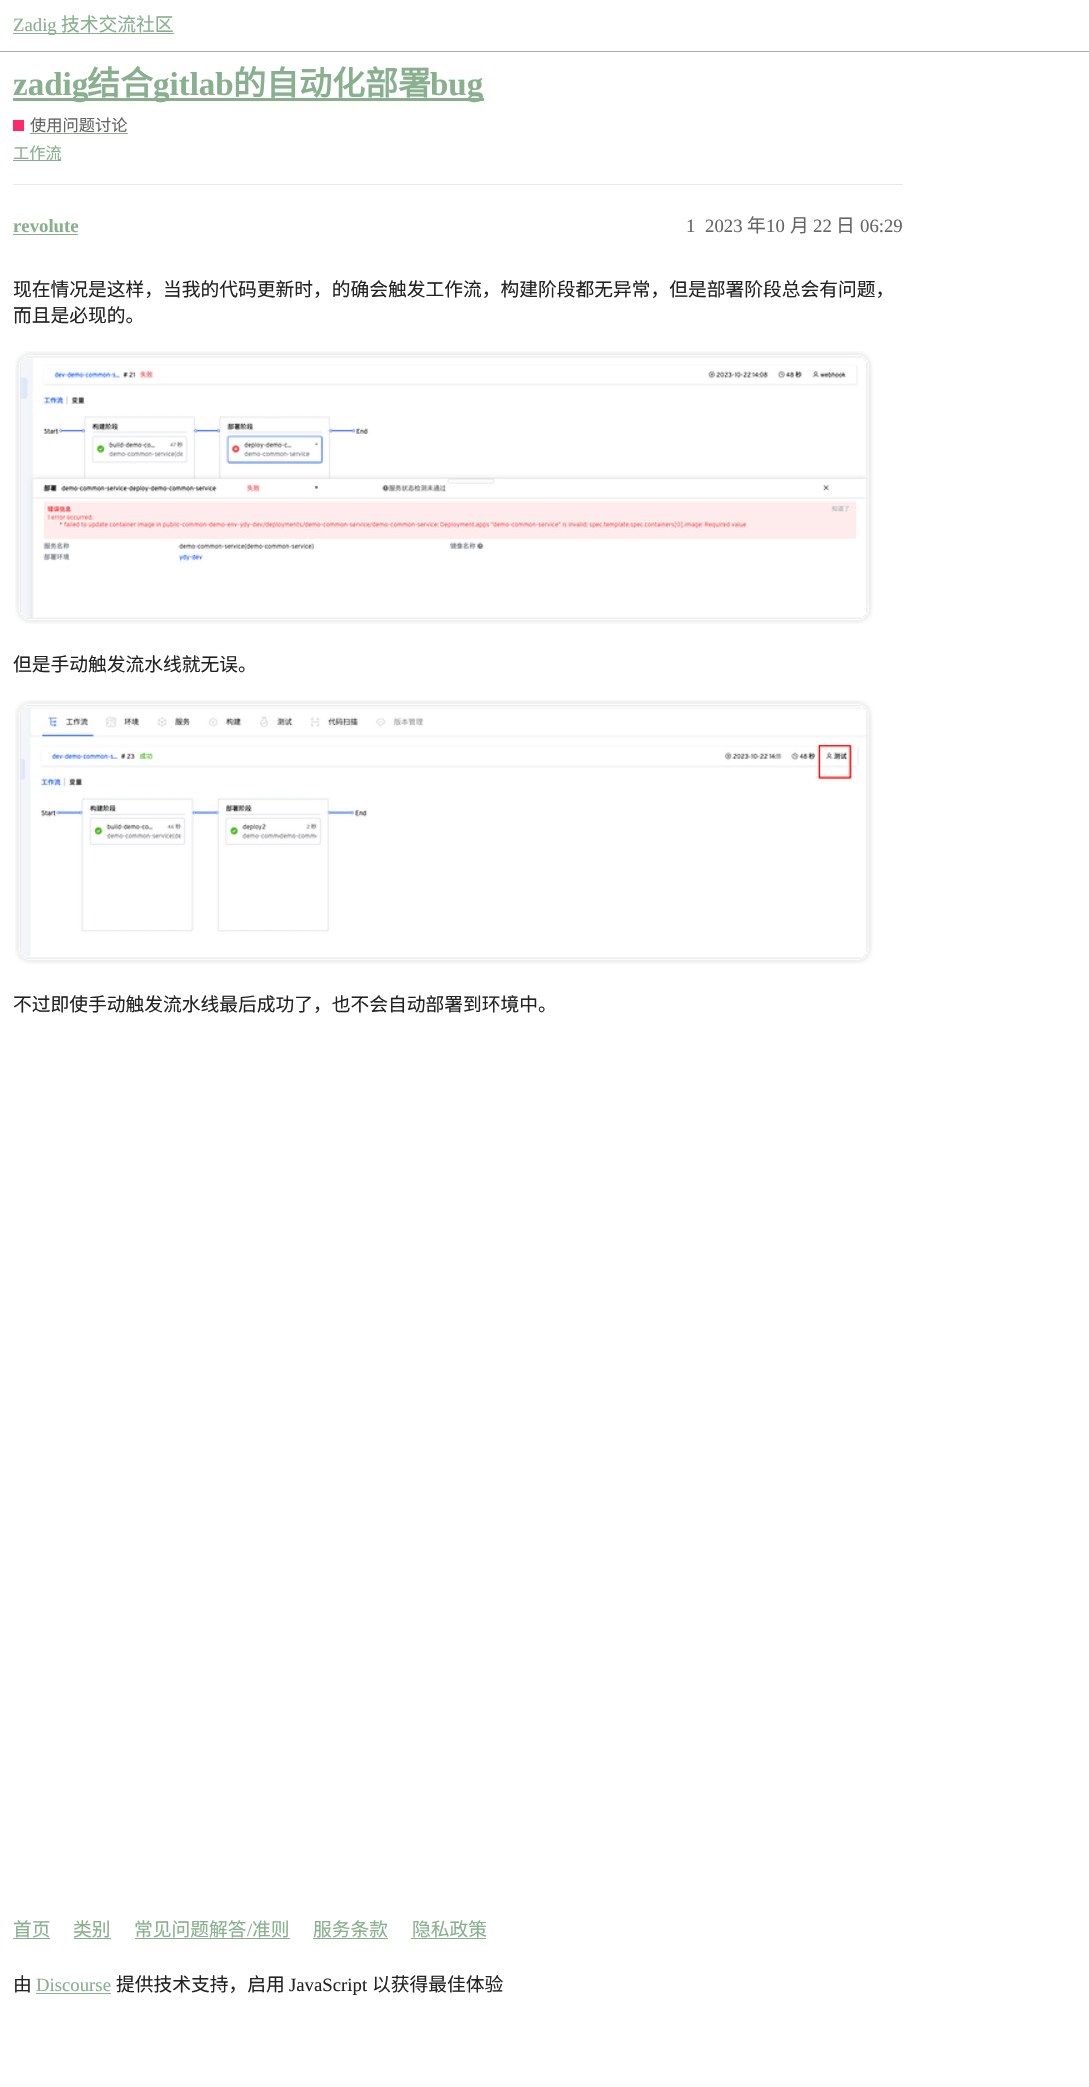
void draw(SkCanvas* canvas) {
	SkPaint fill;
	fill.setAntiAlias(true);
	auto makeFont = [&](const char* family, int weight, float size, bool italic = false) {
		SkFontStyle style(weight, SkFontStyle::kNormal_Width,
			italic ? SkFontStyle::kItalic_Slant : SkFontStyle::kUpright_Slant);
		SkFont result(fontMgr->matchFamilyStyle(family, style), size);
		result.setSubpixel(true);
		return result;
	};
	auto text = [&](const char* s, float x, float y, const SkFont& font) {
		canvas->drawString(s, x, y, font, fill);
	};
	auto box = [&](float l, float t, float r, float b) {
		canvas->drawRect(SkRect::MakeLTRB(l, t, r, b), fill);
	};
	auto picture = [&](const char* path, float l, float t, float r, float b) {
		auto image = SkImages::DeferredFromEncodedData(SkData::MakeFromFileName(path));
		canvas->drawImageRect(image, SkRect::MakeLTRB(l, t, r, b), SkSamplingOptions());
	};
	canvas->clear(0xFFFFFFFF);
	fill.setColor(0xFFAFAFAF);
	box(0, 51, 1089, 52);
	fill.setColor(0xFF88AF8E);
	box(13, 33, 174, 34);
	box(13, 98, 484, 101);
	fill.setColor(0xFFFF2968);
	box(13, 120, 24, 131);
	fill.setColor(0xFF88AF8E);
	box(30, 133, 128, 134);
	box(13, 160, 61, 161);
	fill.setColor(0xFFE9E9E9);
	box(13, 184, 903, 185);
	fill.setColor(0xFF88AF8E);
	box(13, 234, 78, 235);
	picture("image0.png", 15, 351, 873, 624);
	picture("image1.png", 15, 700, 873, 964);
	box(13, 1938, 50, 1939);
	box(74, 1938, 111, 1939);
	box(135, 1938, 290, 1939);
	box(313, 1938, 388, 1939);
	box(411, 1938, 486, 1939);
	box(36, 1993, 111, 1994);
	auto font1 = makeFont("Liberation Serif", 400, 18.75f);
	text("Zadig", 13, 31, font1);
	auto font2 = makeFont("Noto Sans CJK SC", 400, 18.75f);
	text("技术交流社区", 61, 31, font2);
	auto font3 = makeFont("Liberation Serif", 700, 33);
	text("zadig", 13, 95, font3);
	auto font4 = makeFont("Noto Sans CJK SC", 700, 33);
	text("结合", 87, 95, font4);
	text("gitlab", 153, 95, font3);
	text("的自动化部署", 233, 95, font4);
	text("bug", 430, 95, font3);
	auto font5 = makeFont("Noto Sans CJK SC", 400, 16.25f);
	fill.setColor(0xFF646464);
	text("使用问题讨论", 30, 131, font5);
	fill.setColor(0xFF88AF8E);
	text("工作流", 13, 159, font5);
	auto font6 = makeFont("Liberation Serif", 700, 18.75f);
	text("revolute", 13, 232, font6);
	fill.setColor(0xFF646464);
	text("1", 686, 232, font1);
	text("2023", 705, 232, font1);
	text("年", 747, 232, font2);
	text("10", 766, 232, font1);
	text("月", 790, 232, font2);
	text("22", 813, 232, font1);
	text("日", 836, 232, font2);
	text("06:29", 860, 232, font1);
	fill.setColor(0xFF222222);
	text("现在情况是这样，当我的代码更新时，的确会触发工作流，构建阶段都无异常，但是部署阶段总会有问题，", 13, 296, font2);
	text("而且是必现的。", 13, 322, font2);
	text("但是手动触发流水线就无误。", 13, 671, font2);
	text("不过即使手动触发流水线最后成功了，也不会自动部署到环境中。", 13, 1011, font2);
	fill.setColor(0xFF88AF8E);
	text("首页", 13, 1936, font2);
	text("类别", 73, 1936, font2);
	text("常见问题解答", 134, 1936, font2);
	text("/", 247, 1936, font1);
	text("准则", 252, 1936, font2);
	text("服务条款", 313, 1936, font2);
	text("隐私政策", 412, 1936, font2);
	fill.setColor(0xFF222222);
	text("由", 13, 1991, font2);
	fill.setColor(0xFF88AF8E);
	text("Discourse", 36, 1991, font1);
	fill.setColor(0xFF222222);
	text("提供技术支持，启用", 116, 1991, font2);
	text("JavaScript", 289, 1991, font1);
	text("以获得最佳体验", 372, 1991, font2);
}
